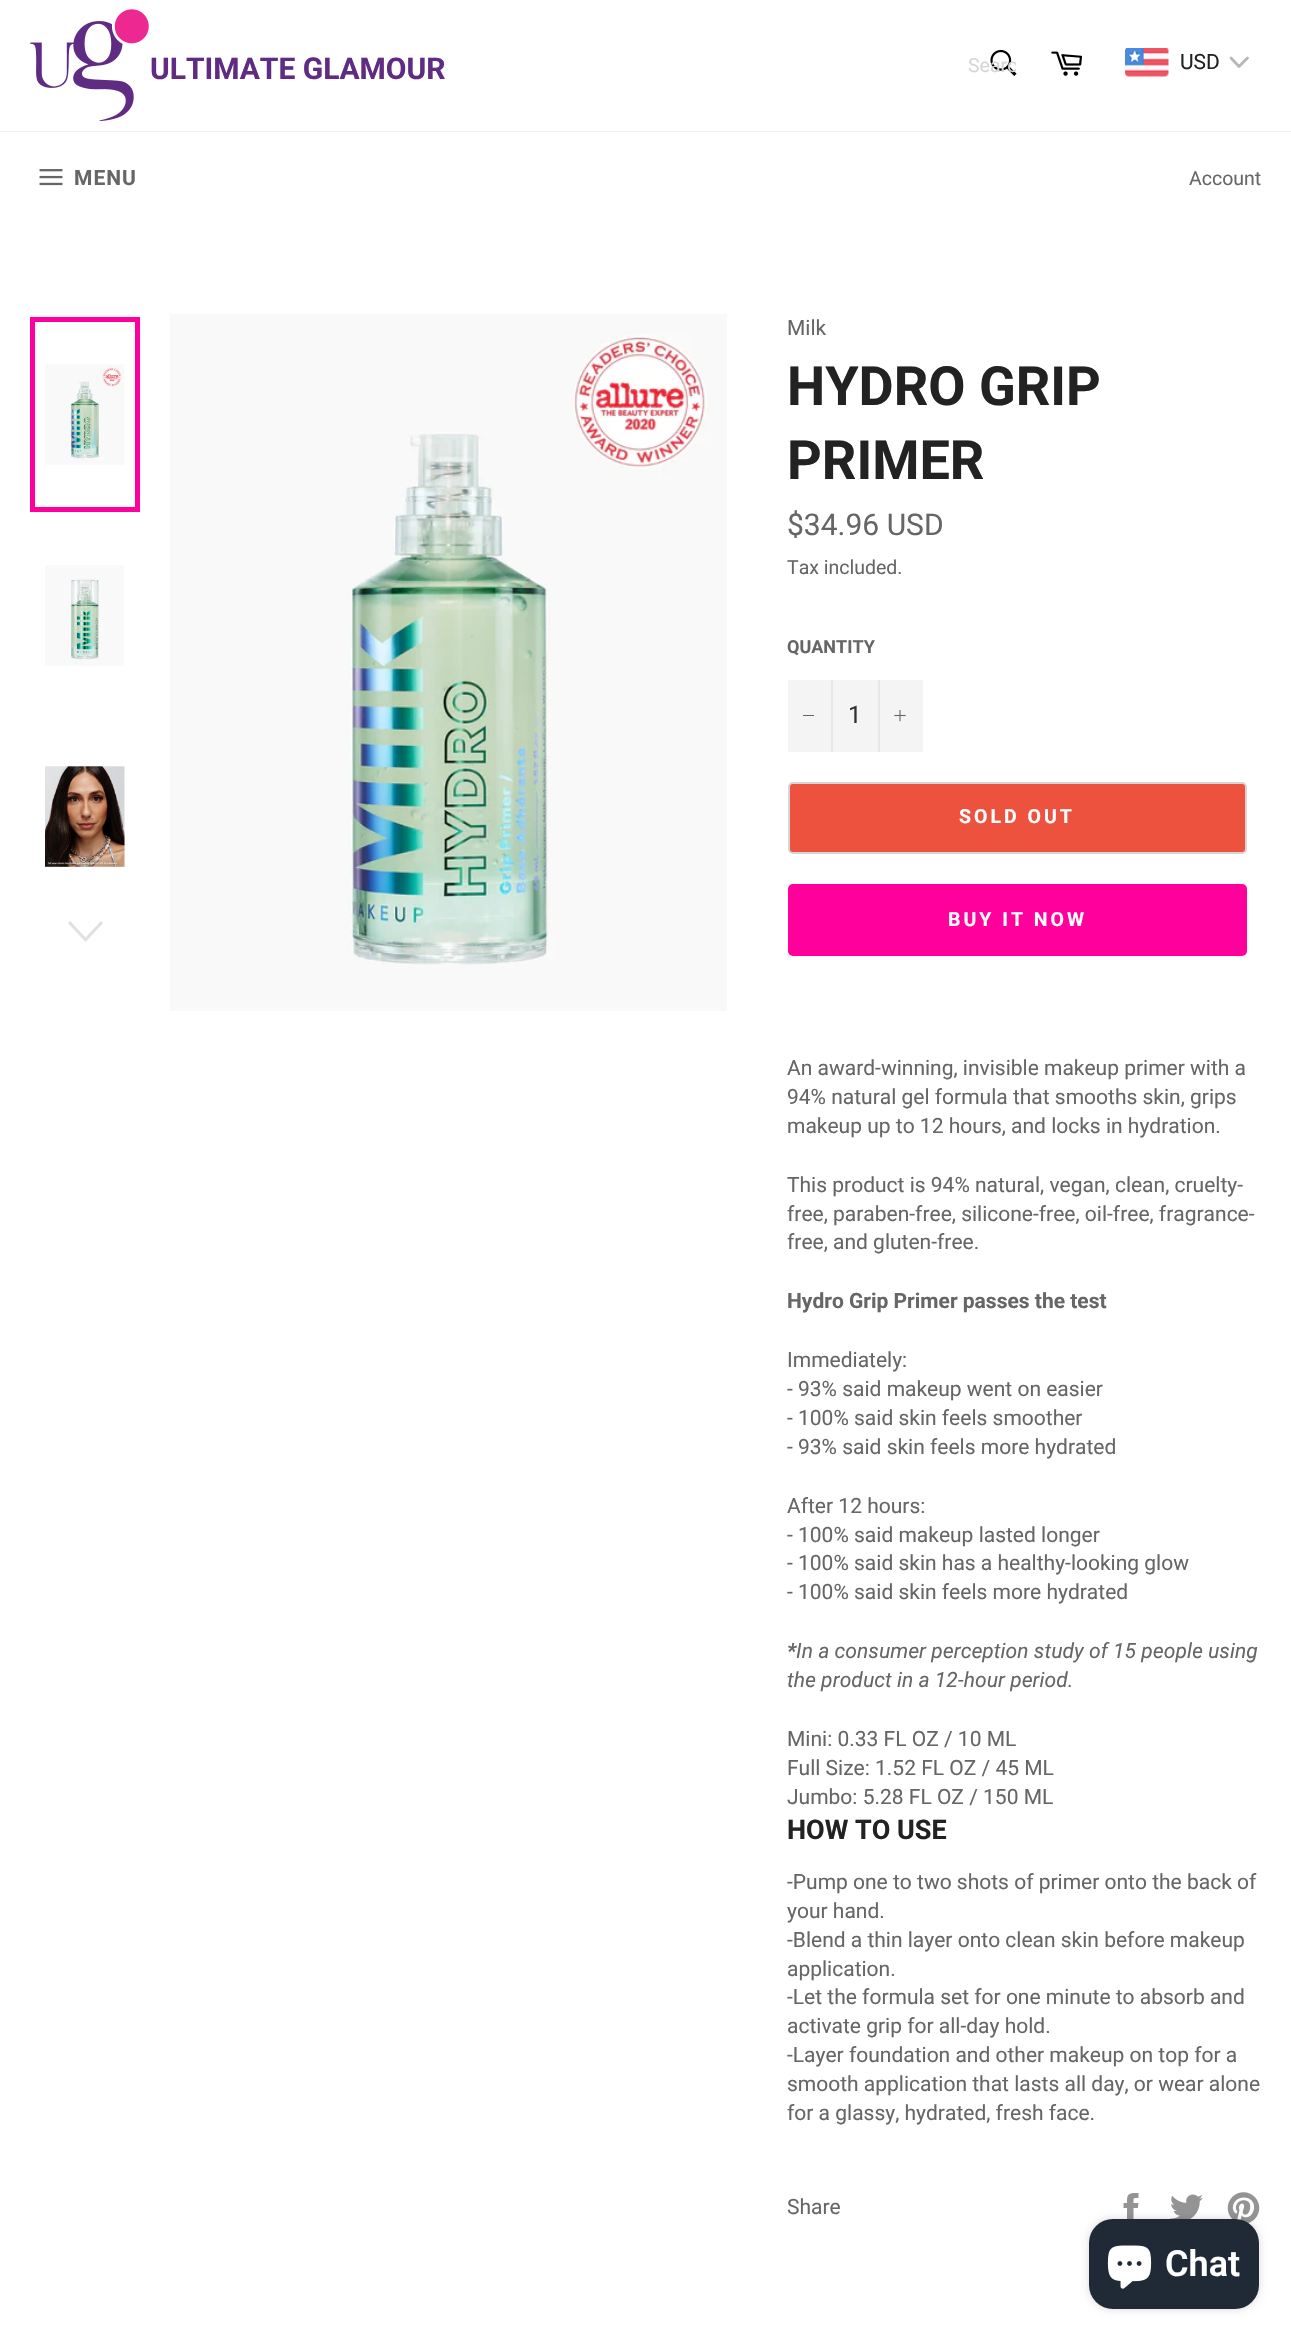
void draw(SkCanvas* canvas) {
	SkPaint fill;
	fill.setAntiAlias(true);
	auto makeFont = [&](const char* family, int weight, float size, bool italic = false) {
		SkFontStyle style(weight, SkFontStyle::kNormal_Width,
			italic ? SkFontStyle::kItalic_Slant : SkFontStyle::kUpright_Slant);
		SkFont result(fontMgr->matchFamilyStyle(family, style), size);
		result.setSubpixel(true);
		return result;
	};
	auto text = [&](const char* s, float x, float y, const SkFont& font) {
		canvas->drawString(s, x, y, font, fill);
	};
	auto spacedText = [&](const char* s, float x, float y, const SkFont& font, const SkPaint& ink, float letter, float word) {
		std::vector<SkGlyphID> glyphs(font.countText(s, strlen(s), SkTextEncoding::kUTF8));
		std::vector<float> xs(glyphs.size());
		font.textToGlyphs(s, strlen(s), SkTextEncoding::kUTF8, glyphs);
		font.getXPos(glyphs, xs, x);
		float extra = 0;
		for (size_t i = 0; i < glyphs.size(); i++) {
			xs[i] += extra;
			extra += letter + word * (glyphs[i] == font.unicharToGlyph(' '));
		}
		canvas->drawTextBlob(SkTextBlob::MakeFromPosHGlyphs(glyphs, xs, y, font), 0, 0, ink);
	};
	auto box = [&](float l, float t, float r, float b) {
		canvas->drawRect(SkRect::MakeLTRB(l, t, r, b), fill);
	};
	auto roundBox = [&](float l, float t, float r, float b, float radius) {
		canvas->drawRoundRect(SkRect::MakeLTRB(l, t, r, b), radius, radius, fill);
	};
	auto picture = [&](const char* path, float l, float t, float r, float b) {
		auto image = SkImages::DeferredFromEncodedData(SkData::MakeFromFileName(path));
		canvas->drawImageRect(image, SkRect::MakeLTRB(l, t, r, b), SkSamplingOptions());
	};
	canvas->clear(0xFFFFFFFF);
	picture("image0.png", 30, 9, 149, 122);
	picture("image1.png", 990, 49, 1017, 76);
	picture("image2.png", 1051, 51, 1082, 76);
	picture("image3.png", 1125, 48, 1169, 77);
	fill.setStyle(SkPaint::kStroke_Style);
	fill.setStrokeWidth(2.7f);
	fill.setStrokeCap(SkPaint::kRound_Cap);
	fill.setStrokeJoin(SkPaint::kRound_Join);
	fill.setColor(0xFFB7B7B7);
	canvas->drawPath(SkPathBuilder().moveTo(1231, 58).lineTo(1239, 66.5f).lineTo(1247.5f, 58).detach(), fill);
	fill.setStyle(SkPaint::kFill_Style);
	fill.setColor(0xFFF2F2F2);
	box(0, 131, 1291, 132);
	picture("image4.png", 39, 169, 63, 186);
	picture("image5.png", 45, 364, 125, 465);
	fill.setStyle(SkPaint::kStroke_Style);
	fill.setStrokeWidth(5);
	fill.setStrokeCap(SkPaint::kButt_Cap);
	fill.setStrokeJoin(SkPaint::kMiter_Join);
	fill.setColor(0xFFFF009C);
	canvas->drawRect(SkRect::MakeLTRB(32.5f, 319.5f, 137.5f, 509.5f), fill);
	picture("image6.png", 45, 565, 124, 666);
	picture("image7.png", 45, 766, 125, 867);
	fill.setStyle(SkPaint::kFill_Style);
	fill.setColor(0xFFE0E0E0);
	canvas->drawPath(SkPathBuilder().moveTo(101, 921).lineTo(103, 923).lineTo(85.5f, 942).lineTo(68, 923).lineTo(70, 921).lineTo(85.5f, 937.5f).close().detach(), fill);
	picture("image8.png", 170, 314, 727, 1011);
	fill.setColor(0xFFF4F4F4);
	box(788, 680, 923, 752);
	fill.setColor(0xFFE7E7E7);
	box(831, 680, 833, 752);
	fill.setColor(0xFF666666);
	box(803, 715, 814, 716);
	fill.setColor(0xFFE7E7E7);
	box(878, 680, 880, 752);
	picture("image9.png", 894, 710, 906, 722);
	fill.setColor(0xFFEC523E);
	canvas->drawRoundRect(SkRect::MakeLTRB(789, 783, 1246, 853), 4, 4, fill);
	fill.setStyle(SkPaint::kStroke_Style);
	fill.setStrokeWidth(2);
	fill.setColor(0xFFD5D5D5);
	canvas->drawRoundRect(SkRect::MakeLTRB(789, 783, 1246, 853), 4, 4, fill);
	fill.setStyle(SkPaint::kFill_Style);
	fill.setColor(0xFFFF009C);
	roundBox(788, 884, 1247, 956, 5);
	picture("image10.png", 1123, 2193, 1139, 2219);
	picture("image11.png", 1170, 2194, 1203, 2219);
	picture("image12.png", 1227, 2192, 1260, 2223);
	fill.setColor(0x26000000);
	fill.setMaskFilter(SkMaskFilter::MakeBlur(kNormal_SkBlurStyle, 4));
	canvas->drawRoundRect(SkRect::MakeLTRB(1089, 2219, 1259, 2309), 24, 24, fill);
	fill.setMaskFilter(nullptr);
	fill.setColor(0xFF202A36);
	roundBox(1089, 2219, 1259, 2309, 24);
	picture("image13.png", 1107, 2245, 1152, 2289);
	auto font1 = makeFont("Roboto", 700, 30);
	fill.setColor(0xFF5F2B83);
	text("ULTIMATE GLAMOUR", 150, 79, font1);
	canvas->save();
	canvas->clipRect(SkRect::MakeLTRB(968, 54, 1016, 77));
	auto font2 = makeFont("Roboto", 400, 19.5f);
	fill.setColor(0xFFD6D6D6);
	text("Searc", 968, 72, font2);
	canvas->restore();
	auto font3 = makeFont("Roboto", 400, 21);
	fill.setColor(0xFF222222);
	text("USD", 1180, 69, font3);
	auto font4 = makeFont("Roboto", 700, 21);
	fill.setColor(0xFF666666);
	spacedText("MENU", 74, 185, font4, fill, 1, 0);
	text("Account", 1189, 185, font2);
	text("Milk", 787, 335, font3);
	auto font5 = makeFont("Roboto", 700, 54);
	fill.setColor(0xFF222222);
	text("HYDRO GRIP", 787, 405, font5);
	text("PRIMER", 787, 479, font5);
	auto font6 = makeFont("Roboto", 400, 30);
	fill.setColor(0xFF666666);
	text("$34.96 USD", 787, 535, font6);
	text("Tax included.", 787, 574, font2);
	auto font7 = makeFont("Roboto", 700, 18);
	text("QUANTITY", 787, 653, font7);
	auto font8 = makeFont("Roboto", 400, 24);
	fill.setColor(0xFF333333);
	text("1", 848, 723, font8);
	auto font9 = makeFont("Roboto", 700, 19.5f);
	fill.setColor(0xFFFFFFFF);
	spacedText("SOLD OUT", 959, 823, font9, fill, 3, 0);
	spacedText("BUY IT NOW", 948, 926, font9, fill, 3, 0);
	fill.setColor(0xFF666666);
	text("An award-winning, invisible makeup primer with a", 787, 1075, font3);
	text("94% natural gel formula that smooths skin, grips", 787, 1104, font3);
	text("makeup up to 12 hours, and locks in hydration.", 787, 1133, font3);
	text("This product is 94% natural, vegan, clean, cruelty-", 787, 1192, font3);
	text("free, paraben-free, silicone-free, oil-free, fragrance-", 787, 1221, font3);
	text("free, and gluten-free.", 787, 1249, font3);
	text("Hydro Grip Primer passes the test", 787, 1308, font4);
	text("Immediately:", 787, 1367, font3);
	text("- 93% said makeup went on easier", 787, 1396, font3);
	text("- 100% said skin feels smoother", 787, 1425, font3);
	text("- 93% said skin feels more hydrated", 787, 1454, font3);
	text("After 12 hours:", 787, 1513, font3);
	text("- 100% said makeup lasted longer", 787, 1542, font3);
	text("- 100% said skin has a healthy-looking glow", 787, 1570, font3);
	text("- 100% said skin feels more hydrated", 787, 1599, font3);
	auto font10 = makeFont("Roboto", 700, 21, true);
	text("*", 787, 1658, font10);
	auto font11 = makeFont("Roboto", 400, 21, true);
	text("In a consumer perception study of 15 people using", 796, 1658, font11);
	text("the product in a 12-hour period.", 787, 1687, font11);
	text("Mini: 0.33 FL OZ / 10 ML", 787, 1746, font3);
	text("Full Size: 1.52 FL OZ / 45 ML", 787, 1775, font3);
	text("Jumbo: 5.28 FL OZ / 150 ML", 787, 1804, font3);
	auto font12 = makeFont("Roboto", 700, 27);
	fill.setColor(0xFF222222);
	text("HOW TO USE", 787, 1839, font12);
	fill.setColor(0xFF666666);
	text("-Pump one to two shots of primer onto the back of", 787, 1889, font3);
	text("your hand.", 787, 1918, font3);
	text("-Blend a thin layer onto clean skin before makeup", 787, 1947, font3);
	text("application.", 787, 1976, font3);
	text("-Let the formula set for one minute to absorb and", 787, 2004, font3);
	text("activate grip for all-day hold.", 787, 2033, font3);
	text("-Layer foundation and other makeup on top for a", 787, 2062, font3);
	text("smooth application that lasts all day, or wear alone", 787, 2091, font3);
	text("for a glassy, hydrated, fresh face.", 787, 2120, font3);
	text("Share", 787, 2214, font3);
	auto font13 = makeFont("Roboto", 600, 36);
	fill.setColor(0xFFFFFFFF);
	text("Chat", 1165, 2276, font13);
}
